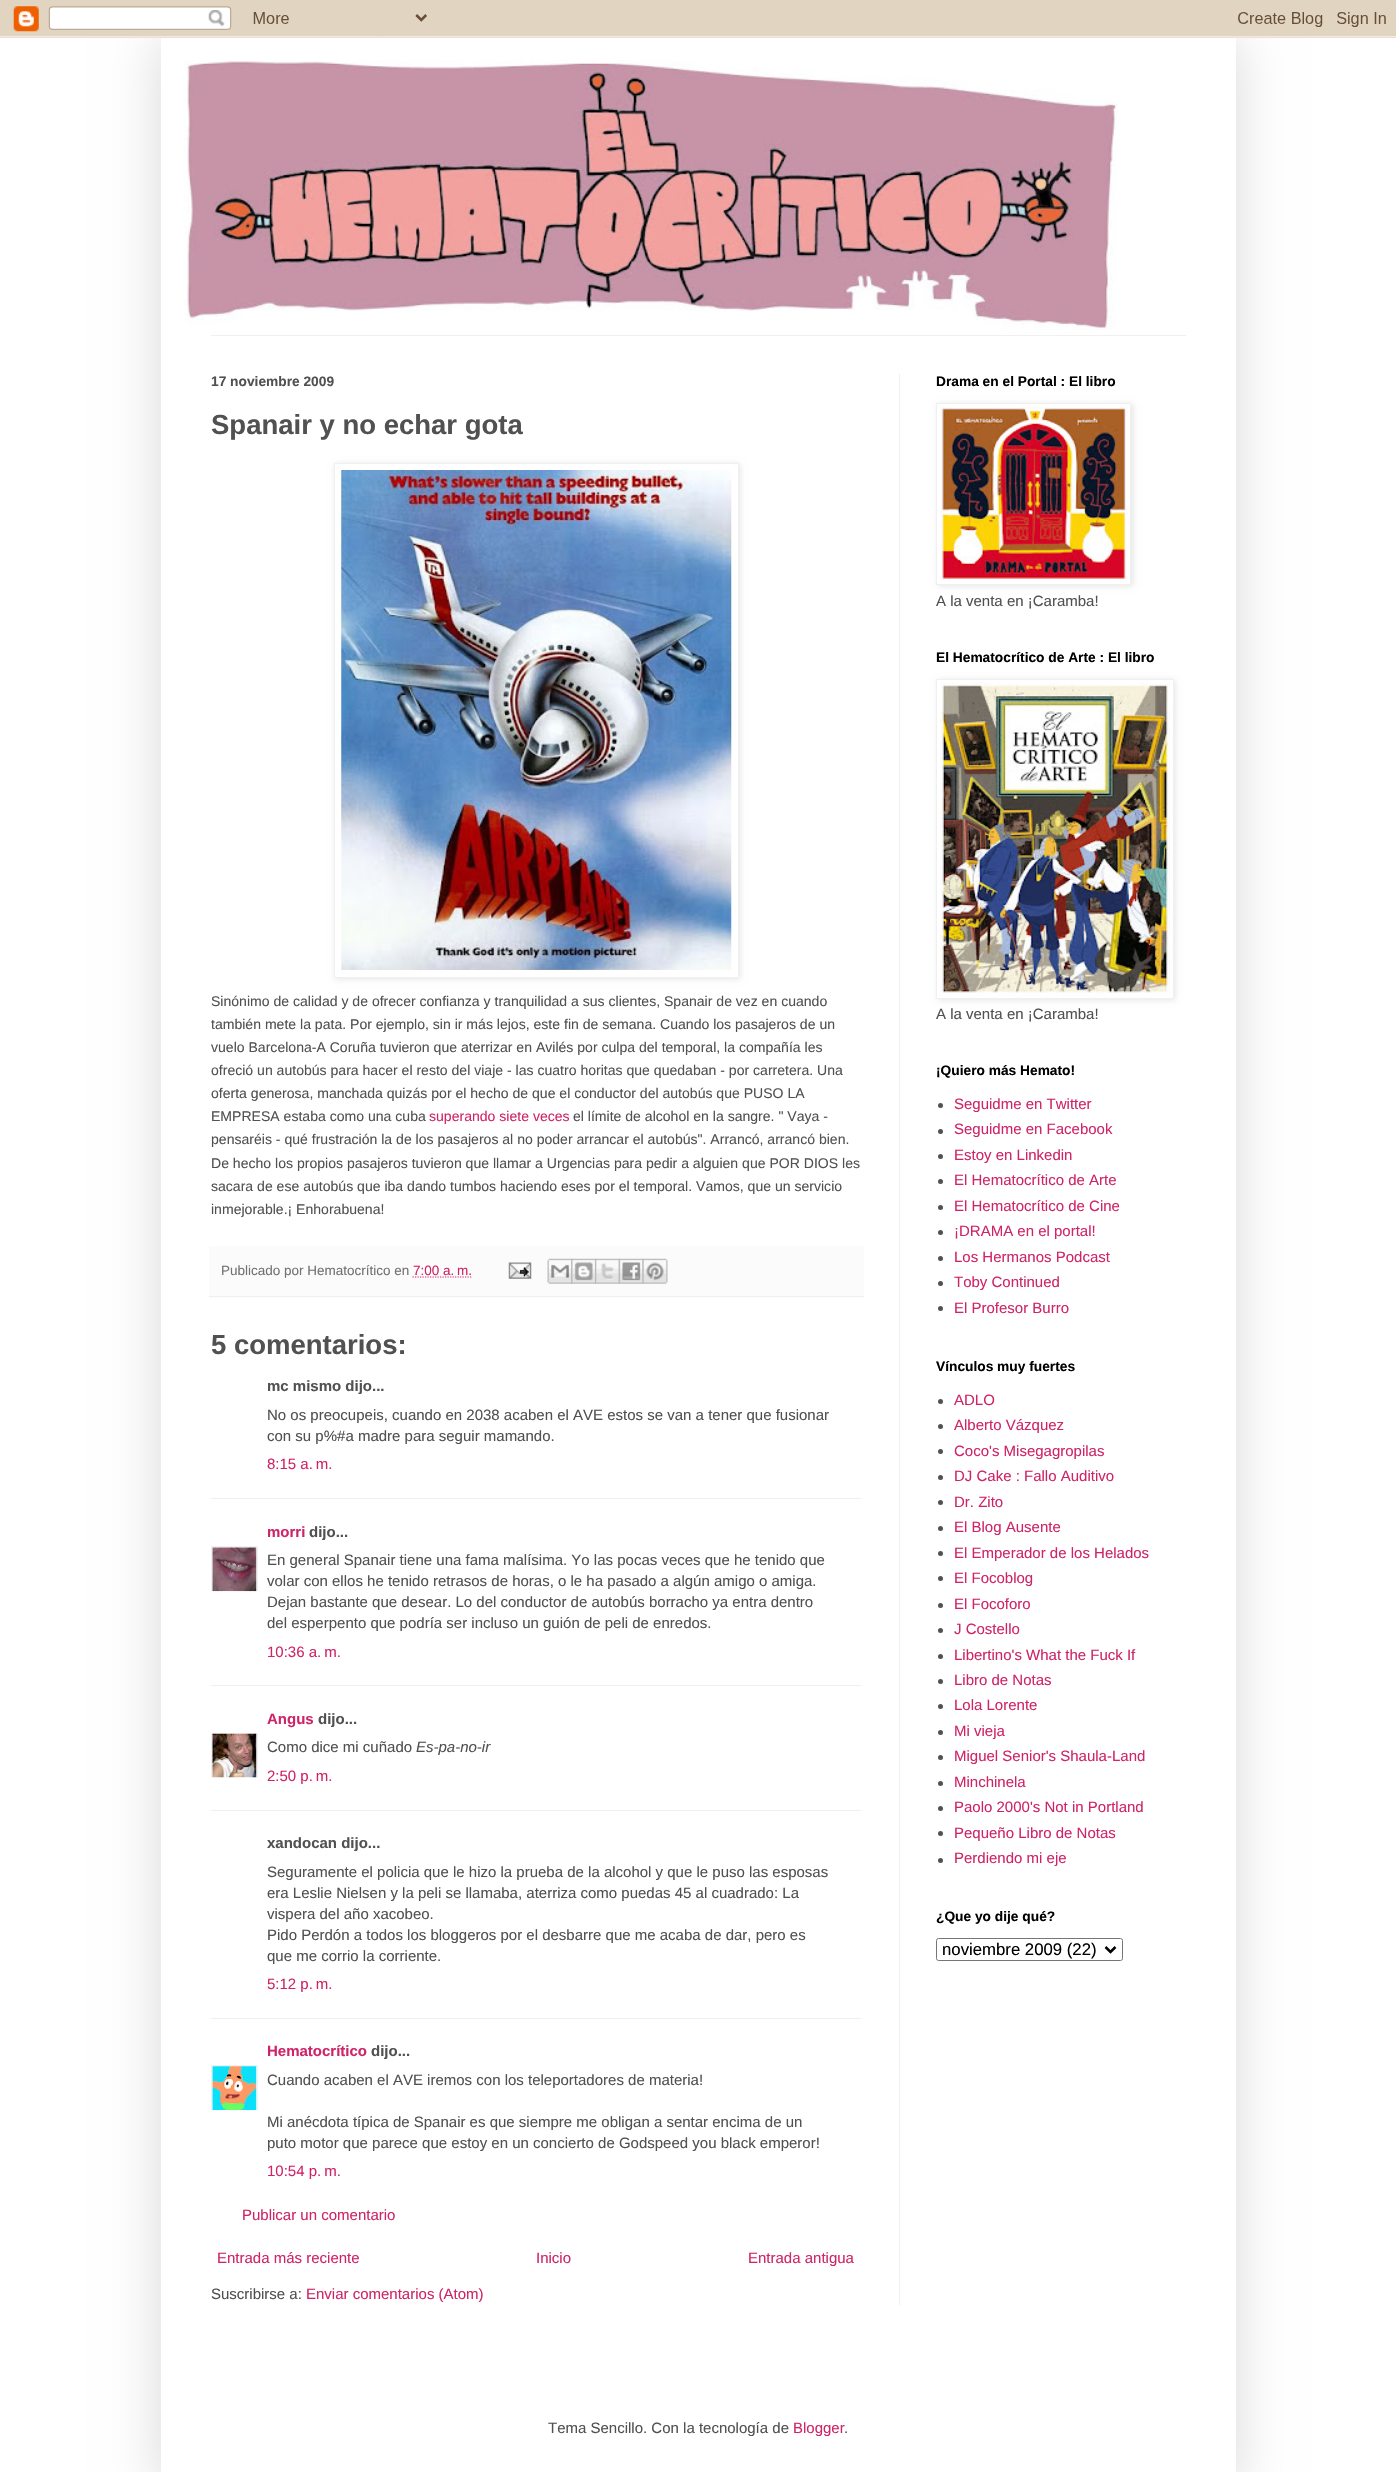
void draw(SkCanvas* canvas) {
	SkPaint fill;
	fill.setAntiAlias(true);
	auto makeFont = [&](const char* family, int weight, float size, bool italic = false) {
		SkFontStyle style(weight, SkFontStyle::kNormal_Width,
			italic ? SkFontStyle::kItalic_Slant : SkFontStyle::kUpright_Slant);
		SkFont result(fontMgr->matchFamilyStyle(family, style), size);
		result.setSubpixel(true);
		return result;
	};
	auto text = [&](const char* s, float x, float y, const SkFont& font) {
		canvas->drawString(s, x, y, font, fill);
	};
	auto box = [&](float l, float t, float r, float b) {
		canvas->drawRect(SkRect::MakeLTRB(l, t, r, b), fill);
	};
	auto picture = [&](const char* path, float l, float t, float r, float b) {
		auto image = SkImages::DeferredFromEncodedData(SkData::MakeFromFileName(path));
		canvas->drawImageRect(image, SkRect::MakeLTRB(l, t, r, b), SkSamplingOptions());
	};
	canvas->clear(0xFFFFFFFF);
	fill.setColor(0x26000000);
	fill.setMaskFilter(SkMaskFilter::MakeBlur(kNormal_SkBlurStyle, 25));
	canvas->drawRect(SkRect::MakeLTRB(161, 38, 1236, 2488), fill);
	fill.setMaskFilter(nullptr);
	picture("image0.png", 0, 0, 1396, 38);
	fill.setColor(0xFFFFFFFF);
	box(161, 38, 1236, 2472);
	picture("image1.png", 184, 60, 1118, 330);
	fill.setColor(0xFFF0F0F0);
	box(211, 335, 1186, 336);
	box(899, 374, 900, 2305);
	fill.setColor(0x1A000000);
	fill.setMaskFilter(SkMaskFilter::MakeBlur(kNormal_SkBlurStyle, 3));
	canvas->drawRect(SkRect::MakeLTRB(335, 464, 740, 979), fill);
	fill.setMaskFilter(nullptr);
	fill.setColor(0xFFFFFFFF);
	canvas->drawRect(SkRect::MakeLTRB(334.5f, 463.5f, 738.5f, 977.5f), fill);
	fill.setStyle(SkPaint::kStroke_Style);
	fill.setStrokeWidth(1);
	fill.setColor(0xFFF0F0F0);
	canvas->drawRect(SkRect::MakeLTRB(334.5f, 463.5f, 738.5f, 977.5f), fill);
	picture("image2.png", 341, 470, 732, 970);
	fill.setStyle(SkPaint::kFill_Style);
	fill.setColor(0xFFFBFBFB);
	box(209, 1246, 864, 1298);
	fill.setColor(0xFFF0F0F0);
	box(209, 1296, 864, 1297);
	fill.setStyle(SkPaint::kStroke_Style);
	fill.setStrokeWidth(1.2f);
	fill.setColor(0xFFCF2568);
	fill.setPathEffect(SkDashPathEffect::Make({{1.25f, 1.25f}}, 0));
	canvas->drawPath(SkPathBuilder().moveTo(412.5f, 1277).lineTo(471.5f, 1277).detach(), fill);
	fill.setPathEffect(nullptr);
	picture("image3.png", 508, 1262, 532, 1279);
	picture("image4.png", 547, 1258, 573, 1284);
	picture("image5.png", 571, 1258, 597, 1284);
	picture("image6.png", 595, 1258, 620, 1284);
	picture("image7.png", 618, 1258, 644, 1284);
	picture("image8.png", 642, 1258, 668, 1284);
	fill.setStyle(SkPaint::kFill_Style);
	fill.setColor(0xFFF0F0F0);
	box(211, 1498, 861, 1499);
	canvas->save();
	canvas->clipRect(SkRect::MakeLTRB(211, 1546, 258, 1591));
	fill.setStyle(SkPaint::kStroke_Style);
	fill.setStrokeWidth(1);
	canvas->drawRect(SkRect::MakeLTRB(211.5f, 1546.5f, 257.5f, 1592.5f), fill);
	canvas->restore();
	picture("image9.png", 212, 1547, 257, 1592);
	fill.setStyle(SkPaint::kFill_Style);
	box(211, 1685, 861, 1686);
	canvas->save();
	canvas->clipRect(SkRect::MakeLTRB(211, 1733, 258, 1778));
	fill.setStyle(SkPaint::kStroke_Style);
	canvas->drawRect(SkRect::MakeLTRB(211.5f, 1733.5f, 257.5f, 1778.5f), fill);
	canvas->restore();
	picture("image10.png", 212, 1733, 257, 1778);
	fill.setStyle(SkPaint::kFill_Style);
	box(211, 1810, 861, 1811);
	box(211, 2018, 861, 2019);
	canvas->save();
	canvas->clipRect(SkRect::MakeLTRB(211, 2065, 258, 2110));
	fill.setStyle(SkPaint::kStroke_Style);
	canvas->drawRect(SkRect::MakeLTRB(211.5f, 2065.5f, 257.5f, 2110.5f), fill);
	canvas->restore();
	picture("image11.png", 212, 2066, 257, 2110);
	fill.setStyle(SkPaint::kFill_Style);
	fill.setColor(0x1A000000);
	fill.setMaskFilter(SkMaskFilter::MakeBlur(kNormal_SkBlurStyle, 3));
	canvas->drawRect(SkRect::MakeLTRB(938, 404, 1133, 586), fill);
	fill.setMaskFilter(nullptr);
	fill.setColor(0xFFFFFFFF);
	canvas->drawRect(SkRect::MakeLTRB(936.5f, 403.5f, 1130.5f, 584.5f), fill);
	fill.setStyle(SkPaint::kStroke_Style);
	fill.setColor(0xFFF0F0F0);
	canvas->drawRect(SkRect::MakeLTRB(936.5f, 403.5f, 1130.5f, 584.5f), fill);
	picture("image12.png", 940, 406, 1128, 581);
	fill.setStyle(SkPaint::kFill_Style);
	fill.setColor(0x1A000000);
	fill.setMaskFilter(SkMaskFilter::MakeBlur(kNormal_SkBlurStyle, 3));
	canvas->drawRect(SkRect::MakeLTRB(938, 680, 1175, 1000), fill);
	fill.setMaskFilter(nullptr);
	fill.setColor(0xFFFFFFFF);
	canvas->drawRect(SkRect::MakeLTRB(936.5f, 679.5f, 1173.5f, 998.5f), fill);
	fill.setStyle(SkPaint::kStroke_Style);
	fill.setColor(0xFFF0F0F0);
	canvas->drawRect(SkRect::MakeLTRB(936.5f, 679.5f, 1173.5f, 998.5f), fill);
	picture("image13.png", 940, 682, 1170, 993);
	fill.setStyle(SkPaint::kFill_Style);
	fill.setColor(0xFF515151);
	canvas->drawCircle(940.5f, 1105.5f, 2.5f, fill);
	canvas->drawCircle(940.5f, 1131.5f, 2.5f, fill);
	canvas->drawCircle(940.5f, 1156.5f, 2.5f, fill);
	canvas->drawCircle(940.5f, 1181.5f, 2.5f, fill);
	canvas->drawCircle(940.5f, 1207.5f, 2.5f, fill);
	canvas->drawCircle(940.5f, 1232.5f, 2.5f, fill);
	canvas->drawCircle(940.5f, 1258.5f, 2.5f, fill);
	canvas->drawCircle(940.5f, 1283.5f, 2.5f, fill);
	canvas->drawCircle(940.5f, 1308.5f, 2.5f, fill);
	canvas->drawCircle(940.5f, 1401.5f, 2.5f, fill);
	canvas->drawCircle(940.5f, 1426.5f, 2.5f, fill);
	canvas->drawCircle(940.5f, 1451.5f, 2.5f, fill);
	canvas->drawCircle(940.5f, 1477.5f, 2.5f, fill);
	canvas->drawCircle(940.5f, 1502.5f, 2.5f, fill);
	canvas->drawCircle(940.5f, 1528.5f, 2.5f, fill);
	canvas->drawCircle(940.5f, 1553.5f, 2.5f, fill);
	canvas->drawCircle(940.5f, 1578.5f, 2.5f, fill);
	canvas->drawCircle(940.5f, 1605.5f, 2.5f, fill);
	canvas->drawCircle(940.5f, 1630.5f, 2.5f, fill);
	canvas->drawCircle(940.5f, 1656.5f, 2.5f, fill);
	canvas->drawCircle(940.5f, 1681.5f, 2.5f, fill);
	canvas->drawCircle(940.5f, 1706.5f, 2.5f, fill);
	canvas->drawCircle(940.5f, 1732.5f, 2.5f, fill);
	canvas->drawCircle(940.5f, 1757.5f, 2.5f, fill);
	canvas->drawCircle(940.5f, 1783.5f, 2.5f, fill);
	canvas->drawCircle(940.5f, 1808.5f, 2.5f, fill);
	canvas->drawCircle(940.5f, 1833.5f, 2.5f, fill);
	canvas->drawCircle(940.5f, 1860.5f, 2.5f, fill);
	fill.setStyle(SkPaint::kStroke_Style);
	fill.setColor(0xFF767676);
	canvas->drawRoundRect(SkRect::MakeLTRB(936.5f, 1938.5f, 1122.5f, 1960.5f), 2, 2, fill);
	fill.setStrokeWidth(2.5f);
	fill.setColor(0xFF000000);
	canvas->drawPath(SkPathBuilder().moveTo(1105.5f, 1947).lineTo(1110.5f, 1952).lineTo(1115.5f, 1947).detach(), fill);
	auto font1 = makeFont("Liberation Sans", 700, 13.75f);
	fill.setStyle(SkPaint::kFill_Style);
	fill.setColor(0xFF515151);
	text("17 noviembre 2009", 211, 386, font1);
	auto font2 = makeFont("Liberation Sans", 700, 27.5f);
	text("Spanair y no echar gota", 211, 434, font2);
	auto font3 = makeFont("Liberation Sans", 400, 14.05f);
	text("Sinónimo de calidad y de ofrecer confianza y tranquilidad a sus clientes, Spanair de vez en cuando", 211, 1006, font3);
	text("también mete la pata. Por ejemplo, sin ir más lejos, este fin de semana. Cuando los pasajeros de un", 211, 1029, font3);
	text("vuelo Barcelona-A Coruña tuvieron que aterrizar en Avilés por culpa del temporal, la compañía les", 211, 1052, font3);
	text("ofreció un autobús para hacer el resto del viaje - las cuatro horitas que quedaban - por carretera. Una", 211, 1075, font3);
	text("oferta generosa, manchada quizás por el hecho de que el conductor del autobús que PUSO LA", 211, 1098, font3);
	text("EMPRESA estaba como una cuba", 211, 1121, font3);
	fill.setColor(0xFFCF2568);
	text("superando siete veces", 429, 1121, font3);
	fill.setColor(0xFF515151);
	text("el límite de alcohol en la sangre. \" Vaya -", 573, 1121, font3);
	text("pensaréis - qué frustración la de los pasajeros al no poder arrancar el autobús\". Arrancó, arrancó bien.", 211, 1144, font3);
	text("De hecho los propios pasajeros tuvieron que llamar a Urgencias para pedir a alguien que POR DIOS les", 211, 1168, font3);
	text("sacara de ese autobús que iba dando tumbos haciendo eses por el temporal. Vamos, que un servicio", 211, 1191, font3);
	text("inmejorable.¡ Enhorabuena!", 211, 1214, font3);
	auto font4 = makeFont("Liberation Sans", 400, 13.5f);
	fill.setColor(0xFF737373);
	text("Publicado por Hematocrítico en", 221, 1275, font4);
	fill.setColor(0xFFCF2568);
	text("7:00 a. m.", 413, 1275, font4);
	fill.setColor(0xFF515151);
	text("5 comentarios:", 211, 1354, font2);
	auto font5 = makeFont("Liberation Sans", 700, 15);
	text("mc mismo dijo...", 267, 1391, font5);
	auto font6 = makeFont("Liberation Sans", 400, 15);
	text("No os preocupeis, cuando en 2038 acaben el AVE estos se van a tener que fusionar", 267, 1420, font6);
	text("con su p%#a madre para seguir mamando.", 267, 1441, font6);
	fill.setColor(0xFFCF2568);
	text("8:15 a. m.", 267, 1469, font6);
	text("morri", 267, 1537, font5);
	fill.setColor(0xFF515151);
	text("dijo...", 309, 1537, font5);
	text("En general Spanair tiene una fama malísima. Yo las pocas veces que he tenido que", 267, 1565, font6);
	text("volar con ellos he tenido retrasos de horas, o le ha pasado a algún amigo o amiga.", 267, 1586, font6);
	text("Dejan bastante que desear. Lo del conductor de autobús borracho ya entra dentro", 267, 1607, font6);
	text("del esperpento que podría ser incluso un guión de peli de enredos.", 267, 1628, font6);
	fill.setColor(0xFFCF2568);
	text("10:36 a. m.", 267, 1657, font6);
	text("Angus", 267, 1724, font5);
	fill.setColor(0xFF515151);
	text("dijo...", 318, 1724, font5);
	text("Como dice mi cuñado", 267, 1752, font6);
	auto font7 = makeFont("Liberation Sans", 400, 15, true);
	text("Es-pa-no-ir", 416, 1752, font7);
	fill.setColor(0xFFCF2568);
	text("2:50 p. m.", 267, 1781, font6);
	fill.setColor(0xFF515151);
	text("xandocan dijo...", 267, 1848, font5);
	text("Seguramente el policia que le hizo la prueba de la alcohol y que le puso las esposas", 267, 1877, font6);
	text("era Leslie Nielsen y la peli se llamaba, aterriza como puedas 45 al cuadrado: La", 267, 1898, font6);
	text("vispera del año xacobeo.", 267, 1919, font6);
	text("Pido Perdón a todos los bloggeros por el desbarre que me acaba de dar, pero es", 267, 1940, font6);
	text("que me corrio la corriente.", 267, 1961, font6);
	fill.setColor(0xFFCF2568);
	text("5:12 p. m.", 267, 1989, font6);
	text("Hematocrítico", 267, 2056, font5);
	fill.setColor(0xFF515151);
	text("dijo...", 371, 2056, font5);
	text("Cuando acaben el AVE iremos con los teleportadores de materia!", 267, 2085, font6);
	text("Mi anécdota típica de Spanair es que siempre me obligan a sentar encima de un", 267, 2127, font6);
	text("puto motor que parece que estoy en un concierto de Godspeed you black emperor!", 267, 2148, font6);
	fill.setColor(0xFFCF2568);
	text("10:54 p. m.", 267, 2176, font6);
	text("Publicar un comentario", 242, 2220, font6);
	text("Entrada más reciente", 217, 2263, font6);
	text("Inicio", 536, 2263, font6);
	text("Entrada antigua", 748, 2263, font6);
	fill.setColor(0xFF515151);
	text("Suscribirse a:", 211, 2299, font6);
	fill.setColor(0xFFCF2568);
	text("Enviar comentarios (Atom)", 306, 2299, font6);
	fill.setColor(0xFF000000);
	text("Drama en el Portal : El libro", 936, 386, font1);
	fill.setColor(0xFF515151);
	text("A la venta en ¡Caramba!", 936, 606, font6);
	fill.setColor(0xFF000000);
	text("El Hematocrítico de Arte : El libro", 936, 662, font1);
	fill.setColor(0xFF515151);
	text("A la venta en ¡Caramba!", 936, 1019, font6);
	fill.setColor(0xFF000000);
	text("¡Quiero más Hemato!", 936, 1075, font1);
	fill.setColor(0xFFCF2568);
	text("Seguidme en Twitter", 954, 1109, font6);
	text("Seguidme en Facebook", 954, 1134, font6);
	text("Estoy en Linkedin", 954, 1160, font6);
	text("El Hematocrítico de Arte", 954, 1185, font6);
	text("El Hematocrítico de Cine", 954, 1211, font6);
	text("¡DRAMA en el portal!", 954, 1236, font6);
	text("Los Hermanos Podcast", 954, 1262, font6);
	text("Toby Continued", 954, 1287, font6);
	text("El Profesor Burro", 954, 1313, font6);
	fill.setColor(0xFF000000);
	text("Vínculos muy fuertes", 936, 1371, font1);
	fill.setColor(0xFFCF2568);
	text("ADLO", 954, 1405, font6);
	text("Alberto Vázquez", 954, 1430, font6);
	text("Coco's Misegagropilas", 954, 1456, font6);
	text("DJ Cake : Fallo Auditivo", 954, 1481, font6);
	text("Dr. Zito", 954, 1507, font6);
	text("El Blog Ausente", 954, 1532, font6);
	text("El Emperador de los Helados", 954, 1558, font6);
	text("El Focoblog", 954, 1583, font6);
	text("El Focoforo", 954, 1609, font6);
	text("J Costello", 954, 1634, font6);
	text("Libertino's What the Fuck If", 954, 1660, font6);
	text("Libro de Notas", 954, 1685, font6);
	text("Lola Lorente", 954, 1710, font6);
	text("Mi vieja", 954, 1736, font6);
	text("Miguel Senior's Shaula-Land", 954, 1761, font6);
	text("Minchinela", 954, 1787, font6);
	text("Paolo 2000's Not in Portland", 954, 1812, font6);
	text("Pequeño Libro de Notas", 954, 1838, font6);
	text("Perdiendo mi eje", 954, 1863, font6);
	fill.setColor(0xFF000000);
	text("¿Que yo dije qué?", 936, 1921, font1);
	auto font8 = makeFont("Liberation Sans", 400, 16.75f);
	text("noviembre 2009 (22)", 942, 1955, font8);
	fill.setColor(0xFF515151);
	text("Tema Sencillo. Con la tecnología de", 548, 2433, font6);
	fill.setColor(0xFFCF2568);
	text("Blogger", 793, 2433, font6);
	fill.setColor(0xFF515151);
	text(".", 844, 2433, font6);
}
